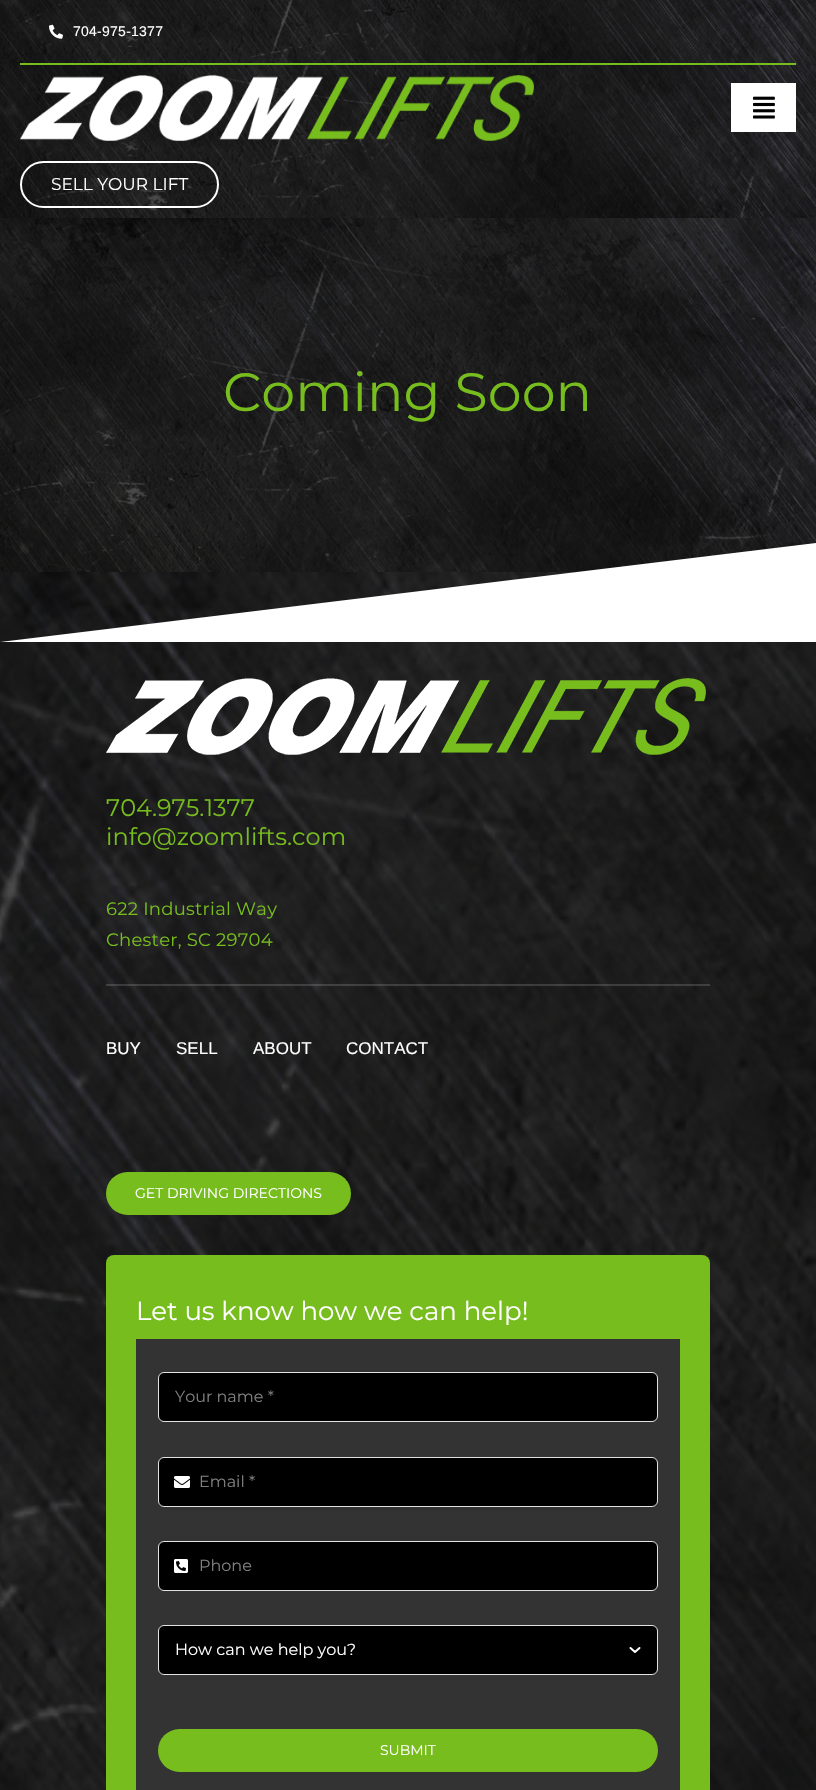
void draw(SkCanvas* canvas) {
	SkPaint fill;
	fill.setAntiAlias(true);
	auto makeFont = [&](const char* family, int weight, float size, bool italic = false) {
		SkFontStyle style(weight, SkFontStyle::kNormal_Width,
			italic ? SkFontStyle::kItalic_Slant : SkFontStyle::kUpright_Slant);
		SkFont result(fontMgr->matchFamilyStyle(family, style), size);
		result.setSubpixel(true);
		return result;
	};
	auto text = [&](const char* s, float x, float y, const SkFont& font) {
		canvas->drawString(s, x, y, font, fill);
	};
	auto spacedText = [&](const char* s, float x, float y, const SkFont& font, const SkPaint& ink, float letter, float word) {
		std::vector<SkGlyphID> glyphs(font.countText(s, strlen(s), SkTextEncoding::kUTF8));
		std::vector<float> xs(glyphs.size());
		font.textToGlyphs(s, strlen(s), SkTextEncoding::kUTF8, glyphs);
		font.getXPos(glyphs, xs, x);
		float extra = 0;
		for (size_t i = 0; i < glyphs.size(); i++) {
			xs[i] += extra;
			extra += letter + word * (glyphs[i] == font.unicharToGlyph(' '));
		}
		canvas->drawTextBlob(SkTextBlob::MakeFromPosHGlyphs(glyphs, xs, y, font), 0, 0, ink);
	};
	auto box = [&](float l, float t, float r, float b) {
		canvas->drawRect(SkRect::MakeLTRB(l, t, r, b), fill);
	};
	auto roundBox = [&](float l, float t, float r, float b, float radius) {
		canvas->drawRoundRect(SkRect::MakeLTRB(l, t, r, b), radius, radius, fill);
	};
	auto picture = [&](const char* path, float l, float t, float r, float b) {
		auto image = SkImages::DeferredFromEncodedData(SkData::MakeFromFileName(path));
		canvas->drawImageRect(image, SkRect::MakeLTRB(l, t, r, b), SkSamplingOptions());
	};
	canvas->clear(0xFFFFFFFF);
	picture("image0.png", 0, 0, 816, 65);
	picture("image1.png", 49, 24, 63, 39);
	fill.setColor(0xFF76BD1D);
	box(20, 63, 796, 65);
	picture("image2.png", 0, 65, 816, 218);
	picture("image3.png", 20, 75, 534, 141);
	fill.setColor(0xFFFFFFFF);
	box(731, 83, 796, 132);
	picture("image4.png", 753, 96, 775, 119);
	fill.setStyle(SkPaint::kStroke_Style);
	fill.setStrokeWidth(2);
	canvas->drawRoundRect(SkRect::MakeLTRB(21, 162, 218, 207), 22.5f, 22.5f, fill);
	picture("image5.png", 0, 218, 816, 572);
	picture("image6.png", 0, 572, 816, 1790);
	fill.setStyle(SkPaint::kFill_Style);
	canvas->drawPath(SkPathBuilder().moveTo(816, 543).lineTo(0, 642).lineTo(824, 642).close().detach(), fill);
	picture("image7.png", 106, 678, 706, 755);
	fill.setColor(0x26FFFFFF);
	box(106, 984, 710, 986);
	fill.setColor(0xFF76BD1D);
	roundBox(106, 1172, 351, 1215, 21.5f);
	roundBox(106, 1255, 710, 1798, 8);
	fill.setColor(0xFF333333);
	box(136, 1339, 680, 1790);
	fill.setColor(0xFF000000);
	canvas->drawRoundRect(SkRect::MakeLTRB(158.5f, 1372.5f, 657.5f, 1421.5f), 5.5f, 5.5f, fill);
	fill.setStyle(SkPaint::kStroke_Style);
	fill.setStrokeWidth(1);
	fill.setColor(0xFFE2E2E2);
	canvas->drawRoundRect(SkRect::MakeLTRB(158.5f, 1372.5f, 657.5f, 1421.5f), 5.5f, 5.5f, fill);
	fill.setStyle(SkPaint::kFill_Style);
	fill.setColor(0xFF000000);
	canvas->drawRoundRect(SkRect::MakeLTRB(158.5f, 1457.5f, 657.5f, 1506.5f), 5.5f, 5.5f, fill);
	fill.setStyle(SkPaint::kStroke_Style);
	fill.setColor(0xFFE2E2E2);
	canvas->drawRoundRect(SkRect::MakeLTRB(158.5f, 1457.5f, 657.5f, 1506.5f), 5.5f, 5.5f, fill);
	picture("image8.png", 174, 1476, 190, 1488);
	fill.setStyle(SkPaint::kFill_Style);
	fill.setColor(0xFF000000);
	canvas->drawRoundRect(SkRect::MakeLTRB(158.5f, 1541.5f, 657.5f, 1590.5f), 5.5f, 5.5f, fill);
	fill.setStyle(SkPaint::kStroke_Style);
	fill.setColor(0xFFE2E2E2);
	canvas->drawRoundRect(SkRect::MakeLTRB(158.5f, 1541.5f, 657.5f, 1590.5f), 5.5f, 5.5f, fill);
	picture("image9.png", 174, 1559, 188, 1573);
	fill.setStyle(SkPaint::kFill_Style);
	fill.setColor(0xFF000000);
	canvas->drawRoundRect(SkRect::MakeLTRB(158.5f, 1625.5f, 657.5f, 1674.5f), 5.5f, 5.5f, fill);
	fill.setStyle(SkPaint::kStroke_Style);
	fill.setColor(0xFFE2E2E2);
	canvas->drawRoundRect(SkRect::MakeLTRB(158.5f, 1625.5f, 657.5f, 1674.5f), 5.5f, 5.5f, fill);
	fill.setStrokeWidth(2);
	fill.setStrokeCap(SkPaint::kRound_Cap);
	fill.setStrokeJoin(SkPaint::kRound_Join);
	fill.setColor(0xFFFFFFFF);
	canvas->drawPath(SkPathBuilder().moveTo(630.5f, 1648).lineTo(635, 1652).lineTo(639.5f, 1648).detach(), fill);
	fill.setStyle(SkPaint::kFill_Style);
	fill.setColor(0xFF76BD1D);
	roundBox(158, 1729, 658, 1772, 21.5f);
	auto font1 = makeFont("Liberation Sans", 400, 14);
	fill.setColor(0xFFFFFFFF);
	spacedText("704-975-1377", 73, 36, font1, fill, 0.25f, 0);
	auto font2 = makeFont("Montserrat", 100, 17);
	text("SELL YOUR LIFT", 51, 190, font2);
	auto font3 = makeFont("Montserrat", 100, 54);
	fill.setColor(0xFF76BD1D);
	text("Coming Soon", 223, 411, font3);
	auto font4 = makeFont("Montserrat", 100, 24);
	text("704.975.1377", 106, 816, font4);
	text("info@zoomlifts.com", 106, 845, font4);
	auto font5 = makeFont("Montserrat", 100, 18);
	spacedText("622 Industrial Way", 106, 915, font5, fill, 0.25f, 0);
	spacedText("Chester, SC 29704", 106, 946, font5, fill, 0.25f, 0);
	auto font6 = makeFont("Liberation Sans", 400, 17);
	fill.setColor(0xFFFFFFFF);
	text("BUY", 106, 1054, font6);
	text("SELL", 176, 1054, font6);
	text("ABOUT", 253, 1054, font6);
	text("CONTACT", 346, 1054, font6);
	auto font7 = makeFont("Montserrat", 100, 14);
	text("GET DRIVING DIRECTIONS", 135, 1198, font7);
	auto font8 = makeFont("Montserrat", 100, 26);
	text("Let us know how we can help!", 136, 1320, font8);
	auto font9 = makeFont("Montserrat", 100, 16);
	fill.setColor(0xFF808080);
	text("Your name *", 175, 1402, font9);
	text("Email *", 199, 1487, font9);
	text("Phone", 199, 1571, font9);
	fill.setColor(0xFFFFFFFF);
	text("How can we help you?", 175, 1655, font9);
	text("SUBMIT", 380, 1755, font7);
}
